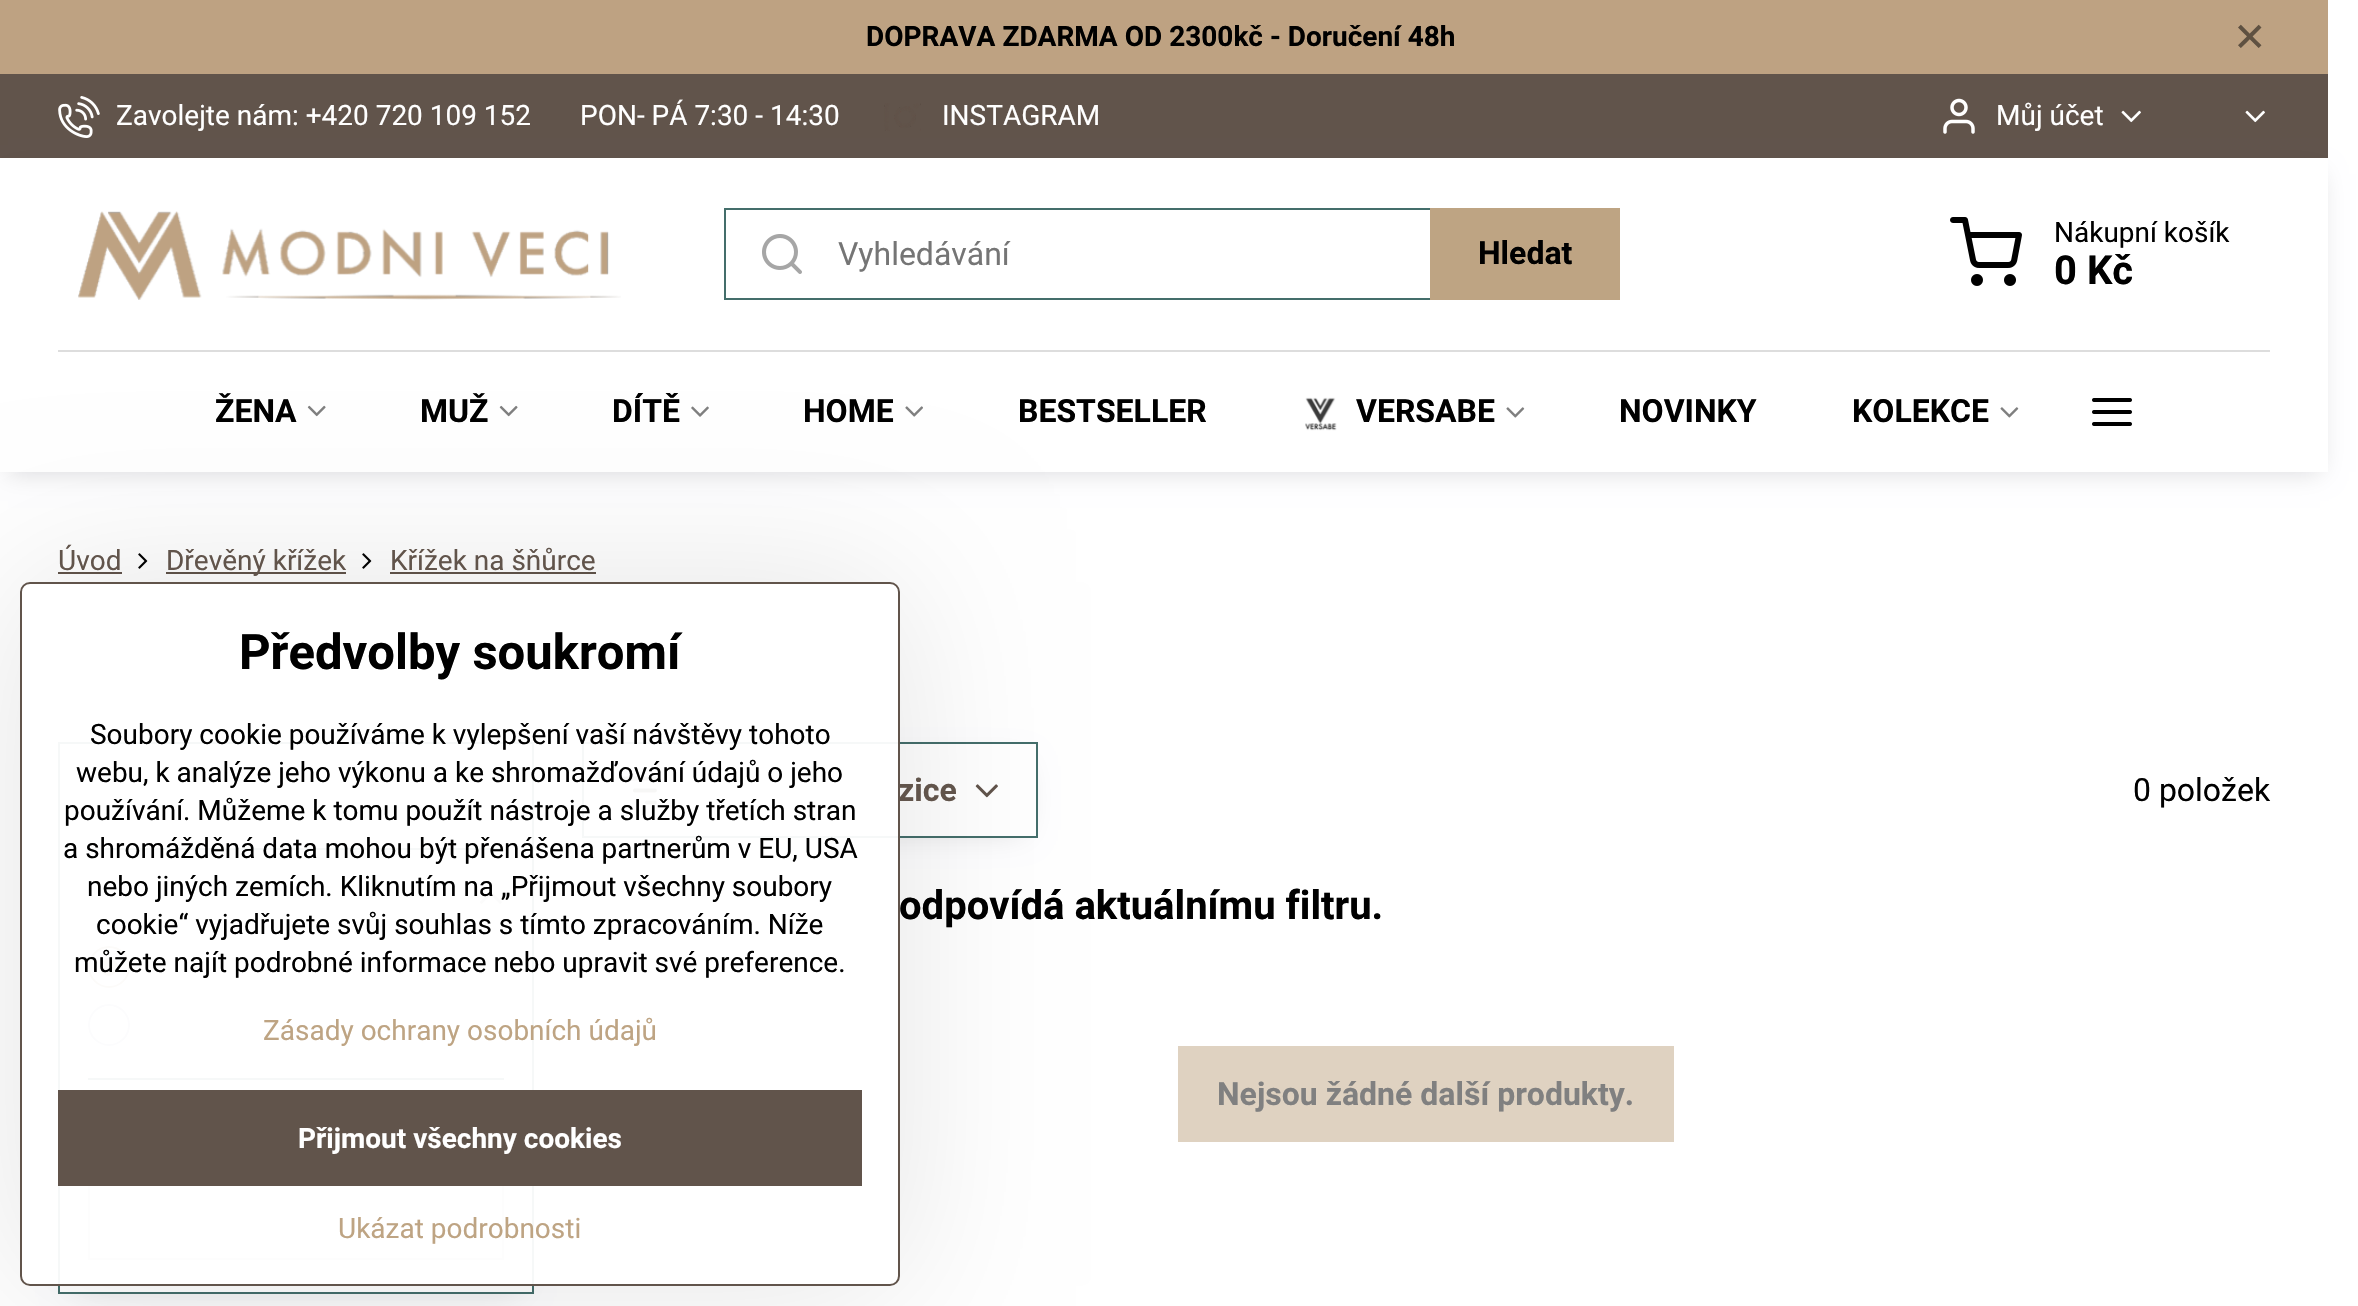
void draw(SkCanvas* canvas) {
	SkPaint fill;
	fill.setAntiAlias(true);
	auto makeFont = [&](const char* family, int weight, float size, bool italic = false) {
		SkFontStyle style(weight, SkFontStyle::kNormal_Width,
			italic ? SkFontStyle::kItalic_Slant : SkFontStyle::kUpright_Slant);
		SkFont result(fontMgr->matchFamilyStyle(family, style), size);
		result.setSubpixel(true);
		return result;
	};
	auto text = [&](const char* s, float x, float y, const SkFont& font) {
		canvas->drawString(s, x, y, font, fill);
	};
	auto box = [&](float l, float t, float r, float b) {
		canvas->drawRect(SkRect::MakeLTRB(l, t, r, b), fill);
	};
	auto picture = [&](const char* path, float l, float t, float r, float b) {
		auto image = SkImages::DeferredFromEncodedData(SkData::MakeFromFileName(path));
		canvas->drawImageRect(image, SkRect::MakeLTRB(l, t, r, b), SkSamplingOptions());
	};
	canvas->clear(0xFFFFFFFF);
	fill.setColor(0xFFBEA282);
	box(0, 0, 2328, 74);
	fill.setColor(0xFF61544B);
	box(0, 74, 2328, 158);
	picture("image0.png", 58, 96, 100, 138);
	picture("image1.png", 884, 103, 921, 131);
	picture("image2.png", 1943, 98, 1975, 134);
	picture("image3.png", 2121, 110, 2141, 123);
	picture("image3.png", 2245, 110, 2265, 123);
	canvas->save();
	canvas->clipPath(SkPathBuilder(SkPathFillType::kEvenOdd).moveTo(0, 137).lineTo(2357, 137).lineTo(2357, 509).lineTo(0, 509).close().moveTo(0, 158).lineTo(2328, 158).lineTo(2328, 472).lineTo(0, 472).close().detach(), true);
	fill.setColor(0x26000014);
	fill.setMaskFilter(SkMaskFilter::MakeBlur(kNormal_SkBlurStyle, 12));
	canvas->drawRect(SkRect::MakeLTRB(8, 174, 2320, 472), fill);
	fill.setMaskFilter(nullptr);
	canvas->restore();
	picture("image4.png", 78, 211, 621, 300);
	fill.setStyle(SkPaint::kStroke_Style);
	fill.setStrokeWidth(2);
	fill.setColor(0xFF446E6B);
	canvas->drawRect(SkRect::MakeLTRB(725, 209, 1619, 299), fill);
	picture("image5.png", 762, 234, 802, 274);
	fill.setStyle(SkPaint::kFill_Style);
	fill.setColor(0xFFBEA483);
	box(1430, 208, 1620, 300);
	picture("image6.png", 1950, 217, 2022, 286);
	fill.setColor(0xFFDDDDDD);
	box(58, 350, 2270, 352);
	picture("image7.png", 307, 405, 326, 417);
	picture("image8.png", 499, 405, 518, 417);
	picture("image9.png", 691, 406, 709, 417);
	picture("image10.png", 905, 406, 923, 417);
	picture("image11.png", 1305, 397, 1337, 431);
	picture("image12.png", 1506, 407, 1525, 418);
	picture("image13.png", 2000, 407, 2019, 418);
	picture("image14.png", 2092, 398, 2132, 426);
	fill.setColor(0xFF61544B);
	box(58, 572, 122, 574);
	picture("image15.png", 138, 553, 148, 569);
	box(166, 572, 346, 574);
	picture("image15.png", 362, 553, 372, 569);
	box(390, 572, 596, 574);
	canvas->save();
	canvas->clipPath(SkPathBuilder(SkPathFillType::kEvenOdd).moveTo(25, 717).lineTo(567, 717).lineTo(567, 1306).lineTo(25, 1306).close().moveTo(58, 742).lineTo(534, 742).lineTo(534, 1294).lineTo(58, 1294).close().detach(), true);
	fill.setColor(0x26000014);
	fill.setMaskFilter(SkMaskFilter::MakeBlur(kNormal_SkBlurStyle, 16));
	canvas->drawRect(SkRect::MakeLTRB(74, 766, 518, 1286), fill);
	fill.setMaskFilter(nullptr);
	canvas->restore();
	fill.setStyle(SkPaint::kStroke_Style);
	fill.setColor(0xFF446E6B);
	canvas->drawRect(SkRect::MakeLTRB(59, 743, 533, 1293), fill);
	fill.setStyle(SkPaint::kFill_Style);
	box(88, 848, 504, 850);
	picture("image16.png", 479, 891, 502, 904);
	fill.setColor(0xFFBEA483);
	canvas->drawCircle(109, 967, 14, fill);
	fill.setStyle(SkPaint::kStroke_Style);
	fill.setStrokeWidth(10);
	fill.setColor(0xFFFFFFFF);
	canvas->drawCircle(109, 967, 14, fill);
	fill.setStrokeWidth(2);
	fill.setColor(0xFFBEA483);
	canvas->drawCircle(109, 967, 20, fill);
	fill.setColor(0xFFB8BBCE);
	canvas->drawCircle(109, 1025, 20, fill);
	fill.setStyle(SkPaint::kFill_Style);
	fill.setColor(0xFF446E6B);
	box(88, 1078, 504, 1080);
	fill.setStyle(SkPaint::kStroke_Style);
	fill.setColor(0xFFD2D5D8);
	canvas->drawRect(SkRect::MakeLTRB(89, 1177, 503, 1259), fill);
	canvas->save();
	canvas->clipPath(SkPathBuilder(SkPathFillType::kEvenOdd).moveTo(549, 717).lineTo(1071, 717).lineTo(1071, 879).lineTo(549, 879).close().moveTo(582, 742).lineTo(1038, 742).lineTo(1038, 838).lineTo(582, 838).close().detach(), true);
	fill.setStyle(SkPaint::kFill_Style);
	fill.setColor(0x26000014);
	fill.setMaskFilter(SkMaskFilter::MakeBlur(kNormal_SkBlurStyle, 16));
	canvas->drawRect(SkRect::MakeLTRB(598, 766, 1022, 830), fill);
	fill.setMaskFilter(nullptr);
	canvas->restore();
	fill.setStyle(SkPaint::kStroke_Style);
	fill.setColor(0xFF446E6B);
	canvas->drawRect(SkRect::MakeLTRB(583, 743, 1037, 837), fill);
	picture("image17.png", 620, 776, 657, 805);
	picture("image18.png", 975, 784, 998, 798);
	fill.setStyle(SkPaint::kFill_Style);
	fill.setColor(0xFFDFD2C1);
	box(1178, 1046, 1674, 1142);
	canvas->save();
	canvas->clipPath(SkPathBuilder(SkPathFillType::kEvenOdd).moveTo(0, 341).lineTo(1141, 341).lineTo(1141, 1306).lineTo(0, 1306).close().moveTo(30, 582).lineTo(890, 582).cubicTo(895.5f, 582, 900, 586.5f, 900, 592).lineTo(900, 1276).cubicTo(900, 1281.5f, 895.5f, 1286, 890, 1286).lineTo(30, 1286).cubicTo(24.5f, 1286, 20, 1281.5f, 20, 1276).lineTo(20, 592).cubicTo(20, 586.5f, 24.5f, 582, 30, 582).close().detach(), true);
	fill.setColor(0x1A000000);
	fill.setMaskFilter(SkMaskFilter::MakeBlur(kNormal_SkBlurStyle, 80));
	canvas->drawRoundRect(SkRect::MakeLTRB(20, 582, 900, 1286), 10, 10, fill);
	fill.setMaskFilter(nullptr);
	canvas->restore();
	auto font1 = makeFont("Roboto", 700, 28);
	fill.setColor(0xFF000000);
	text("DOPRAVA ZDARMA OD 2300kč - Doručení 48h", 866, 46, font1);
	auto font2 = makeFont("DejaVu Sans", 400, 40);
	fill.setColor(0xFF5F5141);
	text("✕", 2233, 51, font2);
	auto font3 = makeFont("Roboto", 400, 28);
	fill.setColor(0xFFFFFFFF);
	text("Zavolejte nám: +420 720 109 152", 116, 125, font3);
	text("PON- PÁ 7:30 - 14:30", 580, 125, font3);
	text("INSTAGRAM", 942, 125, font3);
	text("Můj účet", 1996, 125, font3);
	auto font4 = makeFont("Roboto", 400, 32);
	fill.setColor(0xFF757575);
	text("Vyhledávání", 838, 265, font4);
	auto font5 = makeFont("Roboto", 700, 32);
	fill.setColor(0xFF000000);
	text("Hledat", 1478, 264, font5);
	text("Nákupní košík", 2054, 242, font3);
	auto font6 = makeFont("Roboto", 700, 40);
	text("0 Kč", 2054, 284, font6);
	text("ŽENA", 215, 422, font5);
	text("MUŽ", 420, 422, font5);
	text("DÍTĚ", 612, 422, font5);
	text("HOME", 803, 422, font5);
	text("BESTSELLER", 1018, 422, font5);
	text("VERSABE", 1356, 422, font5);
	text("NOVINKY", 1619, 422, font5);
	text("KOLEKCE", 1852, 422, font5);
	fill.setColor(0xFF61544B);
	text("Úvod", 58, 570, font3);
	text("Dřevěný křížek", 166, 570, font3);
	text("Křížek na šňůrce", 390, 570, font3);
	text("zice", 898, 801, font5);
	fill.setColor(0xFF000000);
	text("0 položek", 2133, 801, font4);
	text("odpovídá aktuálnímu filtru.", 899, 919, font6);
	fill.setColor(0xFF808080);
	text("Nejsou žádné další produkty.", 1217, 1105, font5);
	fill.setColor(0xF2FFFFFF);
	canvas->drawRoundRect(SkRect::MakeLTRB(21, 583, 899, 1285), 9, 9, fill);
	fill.setStyle(SkPaint::kStroke_Style);
	fill.setColor(0xFF61544B);
	canvas->drawRoundRect(SkRect::MakeLTRB(21, 583, 899, 1285), 9, 9, fill);
	auto font7 = makeFont("Roboto", 700, 49);
	fill.setStyle(SkPaint::kFill_Style);
	fill.setColor(0xFF000000);
	text("Předvolby soukromí", 239, 669, font7);
	text("Soubory cookie používáme k vylepšení vaší návštěvy tohoto", 90, 744, font3);
	text("webu, k analýze jeho výkonu a ke shromažďování údajů o jeho", 76, 782, font3);
	text("používání. Můžeme k tomu použít nástroje a služby třetích stran", 64, 820, font3);
	text("a shromážděná data mohou být přenášena partnerům v EU, USA", 63, 858, font3);
	text("nebo jiných zemích. Kliknutím na „Přijmout všechny soubory", 87, 896, font3);
	text("cookie“ vyjadřujete svůj souhlas s tímto zpracováním. Níže", 96, 934, font3);
	text("můžete najít podrobné informace nebo upravit své preference.", 74, 972, font3);
	fill.setColor(0xFFBEA483);
	text("Zásady ochrany osobních údajů", 263, 1040, font3);
	fill.setColor(0xFF61544B);
	box(58, 1090, 862, 1186);
	fill.setColor(0xFFFFFFFF);
	text("Přijmout všechny cookies", 298, 1148, font1);
	fill.setColor(0xFFBEA483);
	text("Ukázat podrobnosti", 338, 1238, font3);
}
